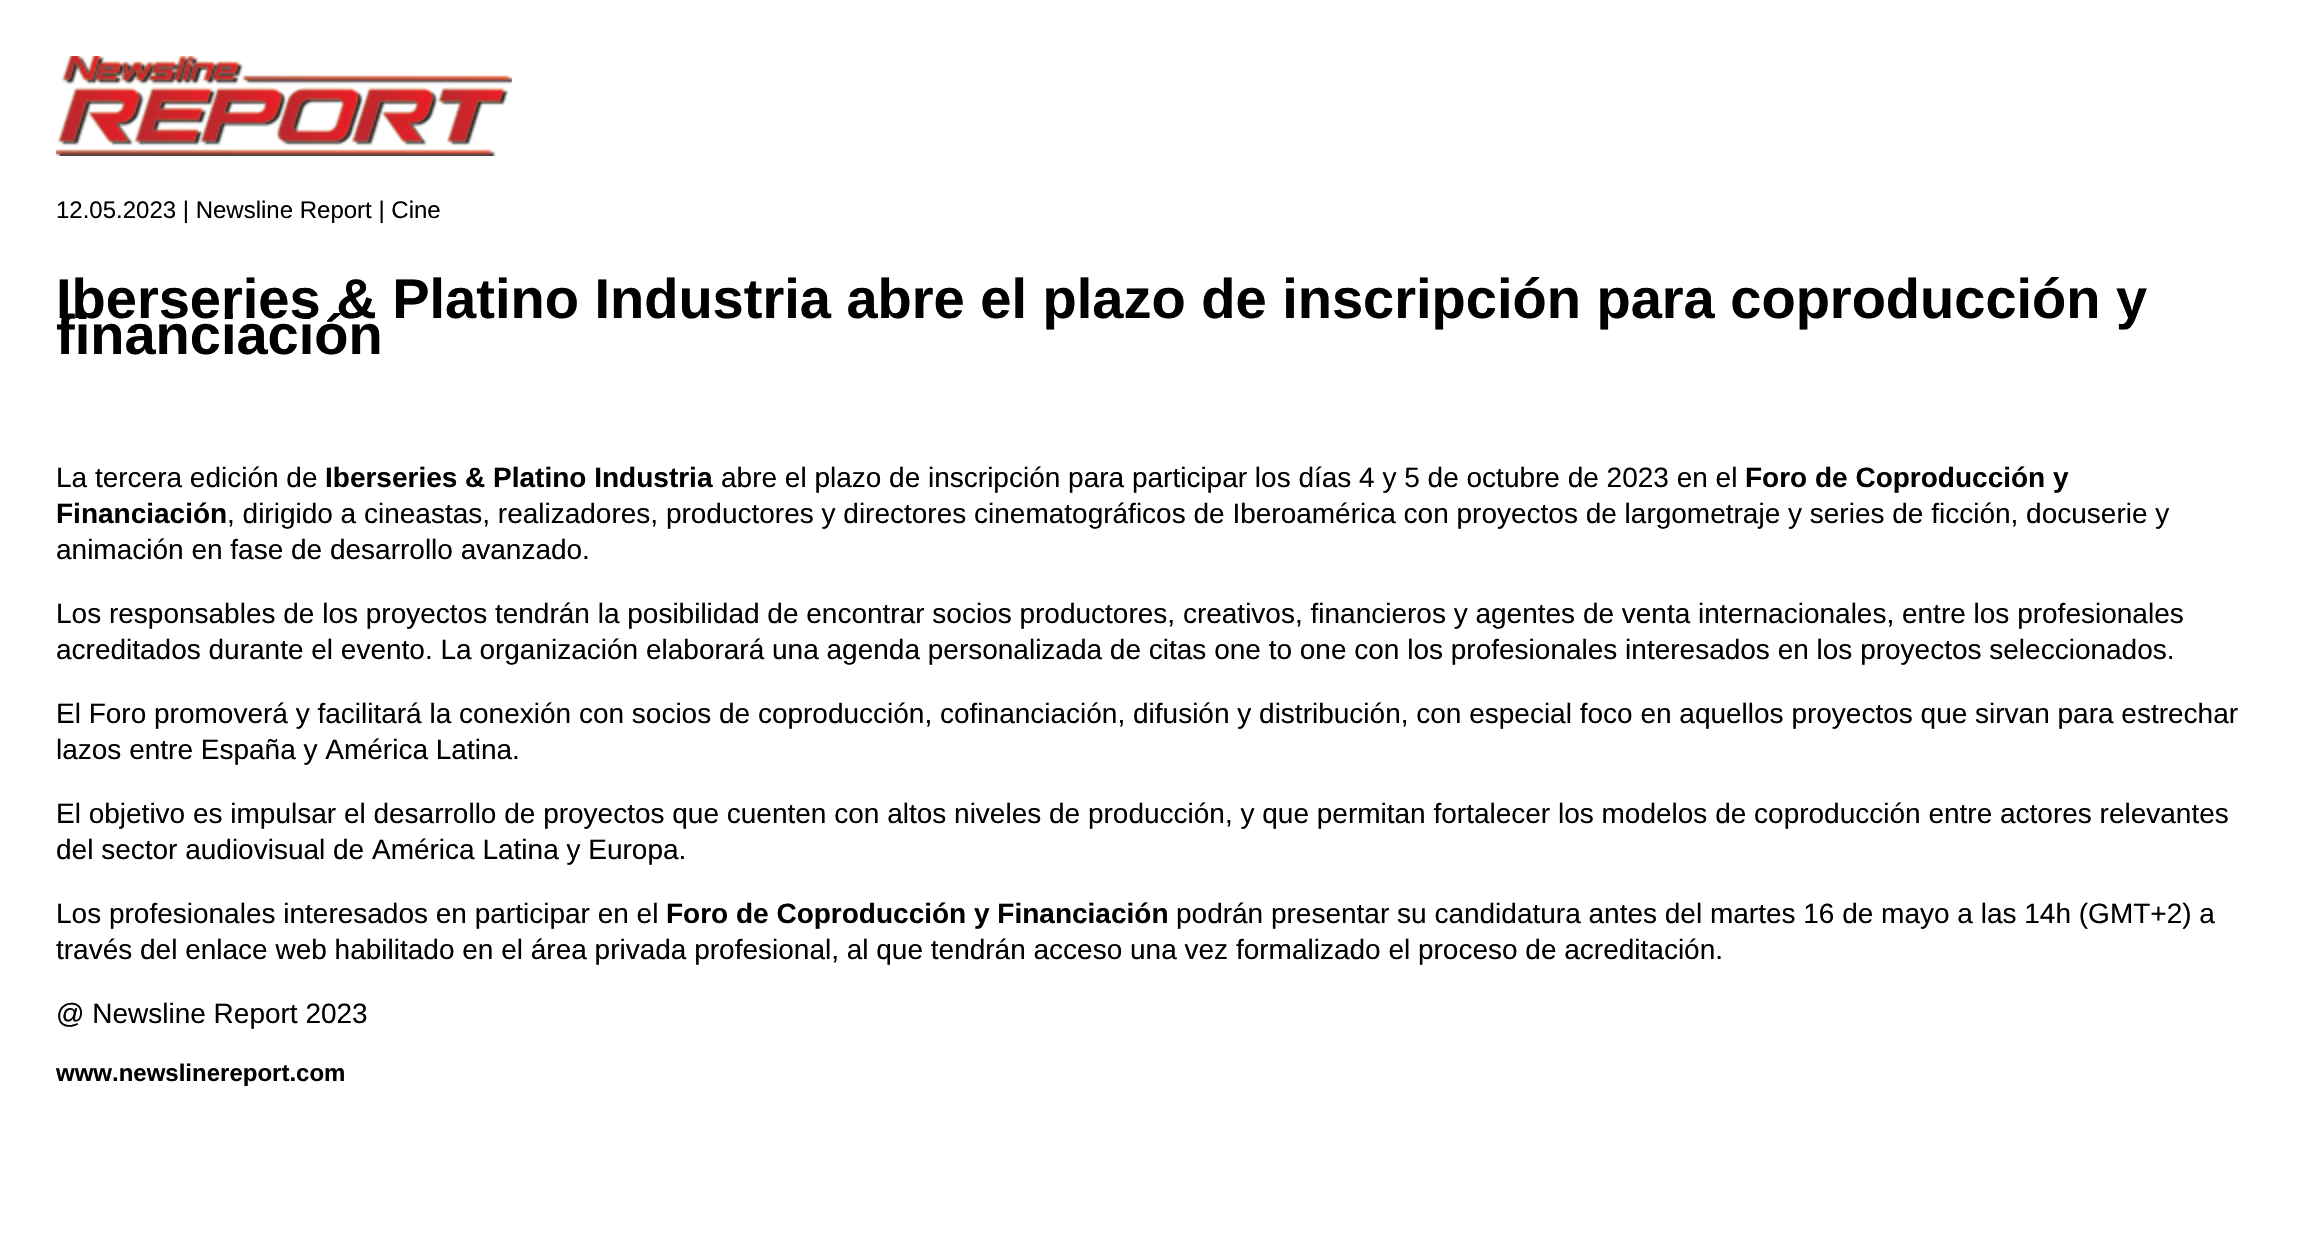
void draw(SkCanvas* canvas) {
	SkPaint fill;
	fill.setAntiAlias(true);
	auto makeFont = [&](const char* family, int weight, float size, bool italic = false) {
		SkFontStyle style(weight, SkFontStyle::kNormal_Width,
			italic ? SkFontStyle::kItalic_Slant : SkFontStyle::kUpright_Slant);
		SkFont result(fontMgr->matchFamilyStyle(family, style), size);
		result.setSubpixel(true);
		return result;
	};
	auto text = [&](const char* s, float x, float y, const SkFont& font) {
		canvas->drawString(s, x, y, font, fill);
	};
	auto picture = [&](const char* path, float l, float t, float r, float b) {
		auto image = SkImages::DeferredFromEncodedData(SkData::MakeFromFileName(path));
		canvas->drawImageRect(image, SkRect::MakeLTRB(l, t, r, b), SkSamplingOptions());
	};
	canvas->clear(0xFFFFFFFF);
	picture("image0.png", 56, 56, 512, 156);
	auto font1 = makeFont("Liberation Sans", 400, 24);
	fill.setColor(0xFF000000);
	text("12.05.2023 | Newsline Report | Cine", 56, 218, font1);
	auto font2 = makeFont("Liberation Sans", 700, 56);
	text("Iberseries & Platino Industria abre el plazo de inscripción para coproducción y", 56, 318, font2);
	text("financiación", 56, 354, font2);
	auto font3 = makeFont("Liberation Sans", 400, 28);
	text("La tercera edición de", 56, 487, font3);
	auto font4 = makeFont("Liberation Sans", 700, 28);
	text("Iberseries & Platino Industria", 325, 487, font4);
	text("abre el plazo de inscripción para participar los días 4 y 5 de octubre de 2023 en el", 721, 487, font3);
	text("Foro de Coproducción y", 1745, 487, font4);
	text("Financiación", 56, 523, font4);
	text(", dirigido a cineastas, realizadores, productores y directores cinematográficos de Iberoamérica con proyectos de largometraje y series de ficción, docuserie y", 227, 523, font3);
	text("animación en fase de desarrollo avanzado.", 56, 559, font3);
	text("Los responsables de los proyectos tendrán la posibilidad de encontrar socios productores, creativos, financieros y agentes de venta internacionales, entre los profesionales", 56, 623, font3);
	text("acreditados durante el evento. La organización elaborará una agenda personalizada de citas one to one con los profesionales interesados en los proyectos seleccionados.", 56, 659, font3);
	text("El Foro promoverá y facilitará la conexión con socios de coproducción, cofinanciación, difusión y distribución, con especial foco en aquellos proyectos que sirvan para estrechar", 56, 723, font3);
	text("lazos entre España y América Latina.", 56, 759, font3);
	text("El objetivo es impulsar el desarrollo de proyectos que cuenten con altos niveles de producción, y que permitan fortalecer los modelos de coproducción entre actores relevantes", 56, 823, font3);
	text("del sector audiovisual de América Latina y Europa.", 56, 859, font3);
	text("Los profesionales interesados en participar en el", 56, 923, font3);
	text("Foro de Coproducción y Financiación", 666, 923, font4);
	text("podrán presentar su candidatura antes del martes 16 de mayo a las 14h (GMT+2) a", 1176, 923, font3);
	text("través del enlace web habilitado en el área privada profesional, al que tendrán acceso una vez formalizado el proceso de acreditación.", 56, 959, font3);
	text("@ Newsline Report 2023", 56, 1023, font3);
	auto font5 = makeFont("Liberation Sans", 700, 24);
	text("www.newslinereport.com", 56, 1081, font5);
}
